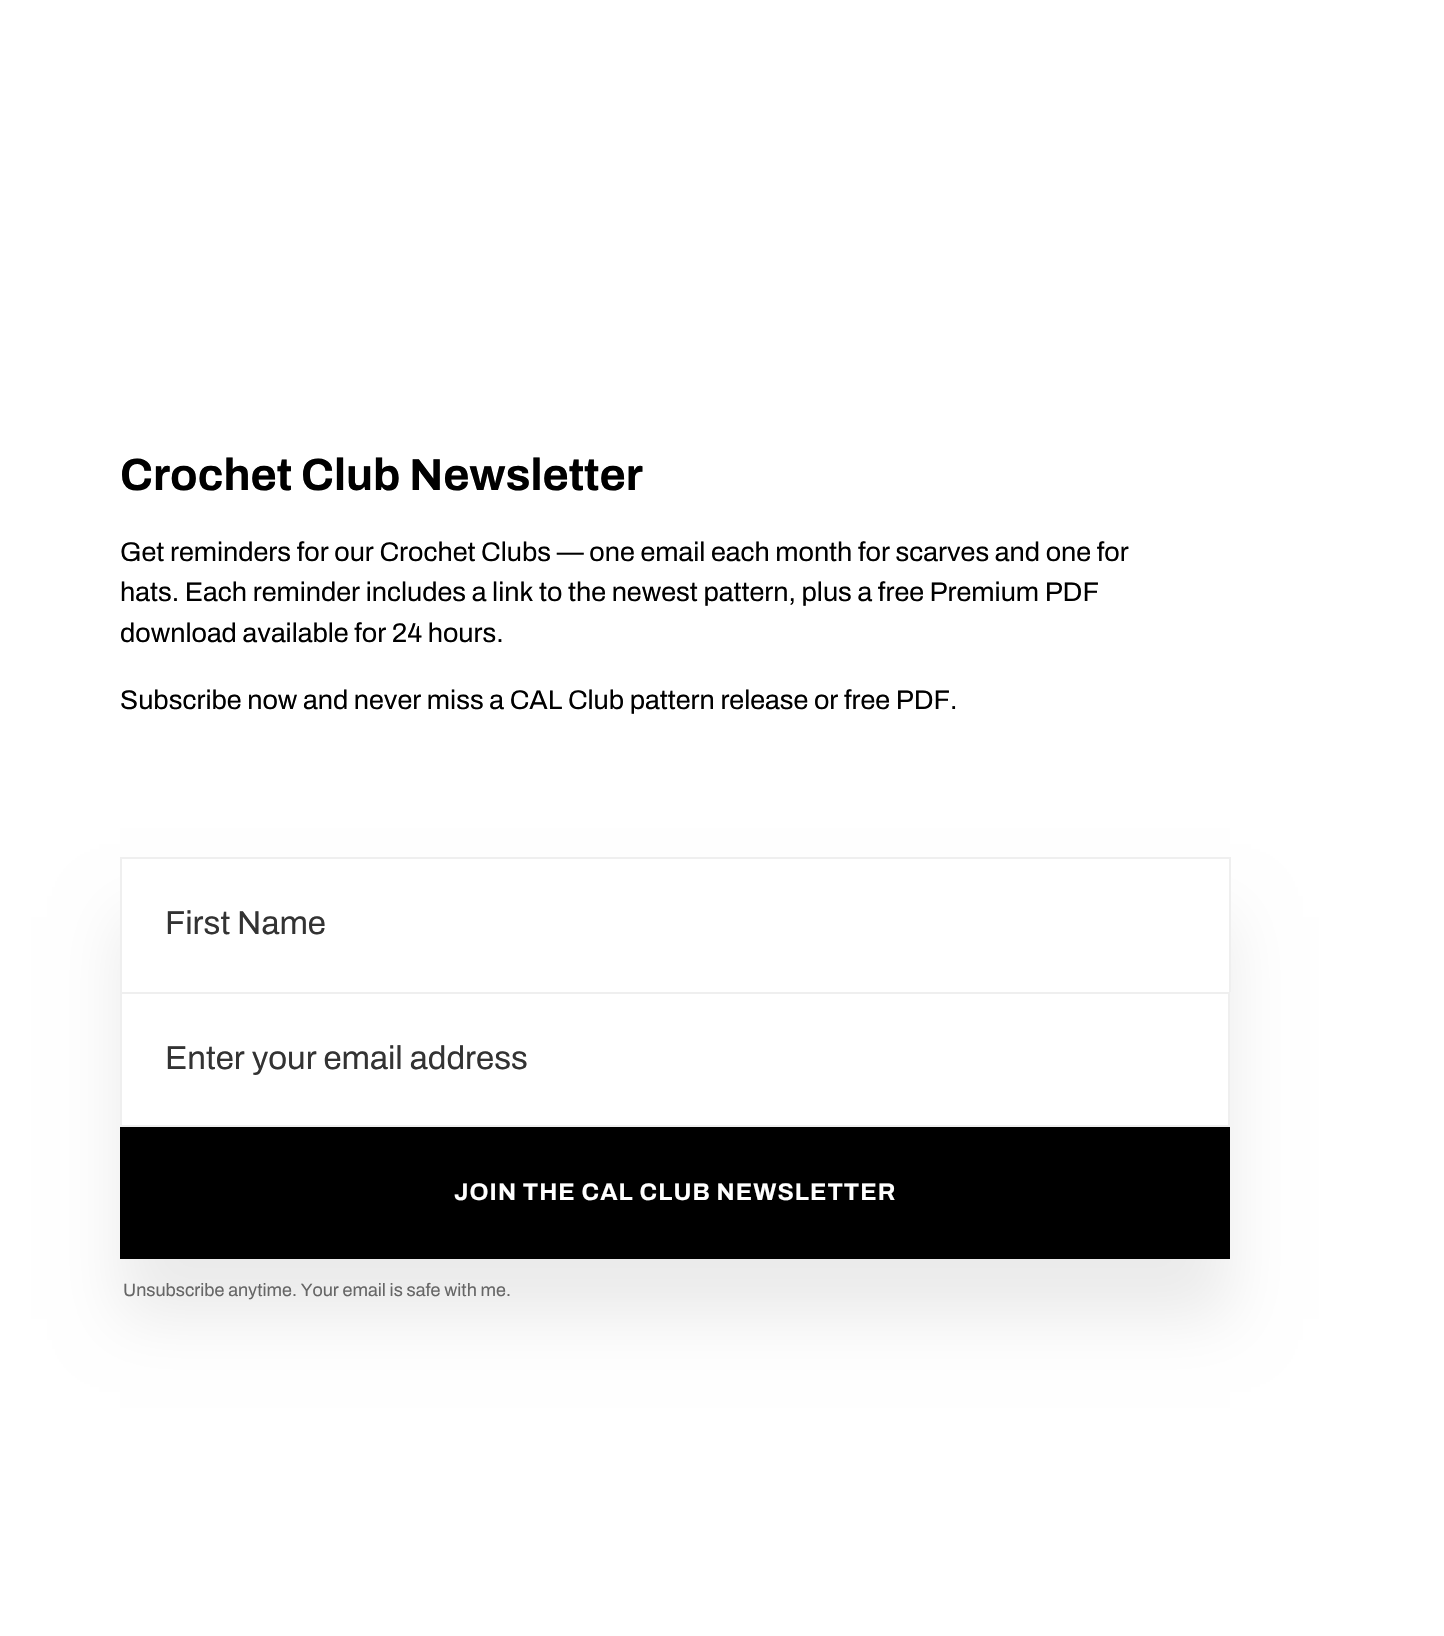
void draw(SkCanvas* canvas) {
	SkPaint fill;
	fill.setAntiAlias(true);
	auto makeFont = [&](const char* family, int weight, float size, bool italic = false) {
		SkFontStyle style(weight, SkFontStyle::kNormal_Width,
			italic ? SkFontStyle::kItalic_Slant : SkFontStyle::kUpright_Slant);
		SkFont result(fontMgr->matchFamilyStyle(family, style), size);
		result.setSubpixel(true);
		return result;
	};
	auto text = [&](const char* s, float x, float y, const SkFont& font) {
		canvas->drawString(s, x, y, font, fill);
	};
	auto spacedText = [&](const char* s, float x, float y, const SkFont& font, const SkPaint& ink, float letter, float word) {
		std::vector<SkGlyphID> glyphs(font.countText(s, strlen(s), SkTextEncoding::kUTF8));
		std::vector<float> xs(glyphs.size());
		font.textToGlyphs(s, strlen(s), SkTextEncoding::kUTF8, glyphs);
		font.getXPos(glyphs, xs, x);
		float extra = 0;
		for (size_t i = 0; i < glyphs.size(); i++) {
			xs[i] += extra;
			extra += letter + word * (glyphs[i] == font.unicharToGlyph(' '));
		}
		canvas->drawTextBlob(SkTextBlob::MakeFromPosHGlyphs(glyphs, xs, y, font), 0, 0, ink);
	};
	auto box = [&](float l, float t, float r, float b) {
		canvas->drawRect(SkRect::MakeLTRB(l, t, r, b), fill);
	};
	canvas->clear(0xFFFFFFFF);
	canvas->save();
	canvas->clipPath(SkPathBuilder(SkPathFillType::kEvenOdd).moveTo(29, 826).lineTo(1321, 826).lineTo(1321, 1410).lineTo(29, 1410).close().moveTo(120, 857).lineTo(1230, 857).lineTo(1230, 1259).lineTo(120, 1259).close().detach(), true);
	fill.setColor(0x14000000);
	fill.setMaskFilter(SkMaskFilter::MakeBlur(kNormal_SkBlurStyle, 30));
	canvas->drawRect(SkRect::MakeLTRB(120, 917, 1230, 1319), fill);
	fill.setMaskFilter(nullptr);
	canvas->restore();
	fill.setColor(0xFFEFEFEF);
	box(120, 857, 1230, 859);
	box(1229, 857, 1231, 992);
	box(120, 857, 122, 992);
	fill.setStyle(SkPaint::kStroke_Style);
	fill.setStrokeWidth(2);
	canvas->drawRect(SkRect::MakeLTRB(121, 993, 1229, 1126), fill);
	fill.setStyle(SkPaint::kFill_Style);
	fill.setColor(0xFF000000);
	box(120, 1127, 1230, 1259);
	auto font1 = makeFont("Archivo", 700, 45);
	text("Crochet Club Newsletter", 120, 490, font1);
	auto font2 = makeFont("Archivo", 400, 27);
	text("Get reminders for our Crochet Clubs — one email each month for scarves and one for", 120, 561, font2);
	text("hats. Each reminder includes a link to the newest pattern, plus a free Premium PDF", 120, 601, font2);
	text("download available for 24 hours.", 120, 642, font2);
	text("Subscribe now and never miss a CAL Club pattern release or free PDF.", 120, 709, font2);
	auto font3 = makeFont("Archivo", 400, 33);
	fill.setColor(0xFF333333);
	text("First Name", 165, 934, font3);
	text("Enter your email address", 165, 1069, font3);
	auto font4 = makeFont("Archivo", 700, 24);
	fill.setColor(0xFFFFFFFF);
	spacedText("JOIN THE CAL CLUB NEWSLETTER", 454, 1200, font4, fill, 1.05f, 0);
	auto font5 = makeFont("Archivo", 400, 18);
	fill.setColor(0xFF666666);
	text("Unsubscribe anytime. Your email is safe with me.", 123, 1296, font5);
}
